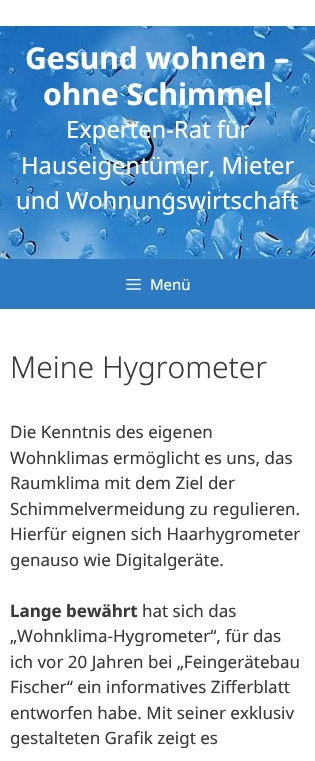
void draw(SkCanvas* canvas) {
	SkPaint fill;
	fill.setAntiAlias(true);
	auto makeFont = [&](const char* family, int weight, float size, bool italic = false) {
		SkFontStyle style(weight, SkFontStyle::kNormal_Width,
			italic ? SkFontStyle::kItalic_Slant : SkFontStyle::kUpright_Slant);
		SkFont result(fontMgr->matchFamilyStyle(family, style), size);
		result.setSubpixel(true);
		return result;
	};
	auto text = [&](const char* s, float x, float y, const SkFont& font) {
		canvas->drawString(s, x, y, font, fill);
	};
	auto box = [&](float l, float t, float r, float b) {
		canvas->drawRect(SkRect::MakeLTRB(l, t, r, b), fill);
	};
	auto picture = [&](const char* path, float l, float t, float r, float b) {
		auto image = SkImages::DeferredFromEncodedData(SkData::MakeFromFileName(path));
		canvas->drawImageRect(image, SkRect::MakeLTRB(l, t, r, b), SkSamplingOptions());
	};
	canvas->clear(0xFF2C7AC2);
	fill.setColor(0xFFFFFFFF);
	box(0, 0, 315, 26);
	picture("image0.png", 0, 26, 315, 259);
	picture("image1.png", 126, 279, 141, 290);
	box(0, 309, 315, 761);
	auto font1 = makeFont("Noto Sans", 700, 30);
	text("Gesund wohnen –", 25, 69, font1);
	text("ohne Schimmel", 43, 105, font1);
	auto font2 = makeFont("Noto Sans", 400, 23.75f);
	text("Experten-Rat für", 66, 138, font2);
	text("Hauseigentümer, Mieter", 21, 174, font2);
	text("und Wohnungswirtschaft", 16, 209, font2);
	auto font3 = makeFont("Noto Sans", 400, 15);
	text("Menü", 150, 290, font3);
	auto font4 = makeFont("Noto Sans", 300, 30);
	fill.setColor(0xFF3A3A3A);
	text("Meine Hygrometer", 10, 378, font4);
	auto font5 = makeFont("Noto Sans", 400, 17);
	text("Die Kenntnis des eigenen", 10, 438, font5);
	text("Wohnklimas ermöglicht es uns, das", 10, 464, font5);
	text("Raumklima mit dem Ziel der", 10, 489, font5);
	text("Schimmelvermeidung zu regulieren.", 10, 515, font5);
	text("Hierfür eignen sich Haarhygrometer", 10, 540, font5);
	text("genauso wie Digitalgeräte.", 10, 566, font5);
	auto font6 = makeFont("Noto Sans", 700, 17);
	text("Lange bewährt", 10, 617, font6);
	text("hat sich das", 142, 617, font5);
	text("„Wohnklima-Hygrometer“, für das", 10, 642, font5);
	text("ich vor 20 Jahren bei „Feingerätebau", 10, 668, font5);
	text("Fischer“ ein informatives Zifferblatt", 10, 693, font5);
	text("entworfen habe. Mit seiner exklusiv", 10, 719, font5);
	text("gestalteten Grafik zeigt es", 10, 744, font5);
}
